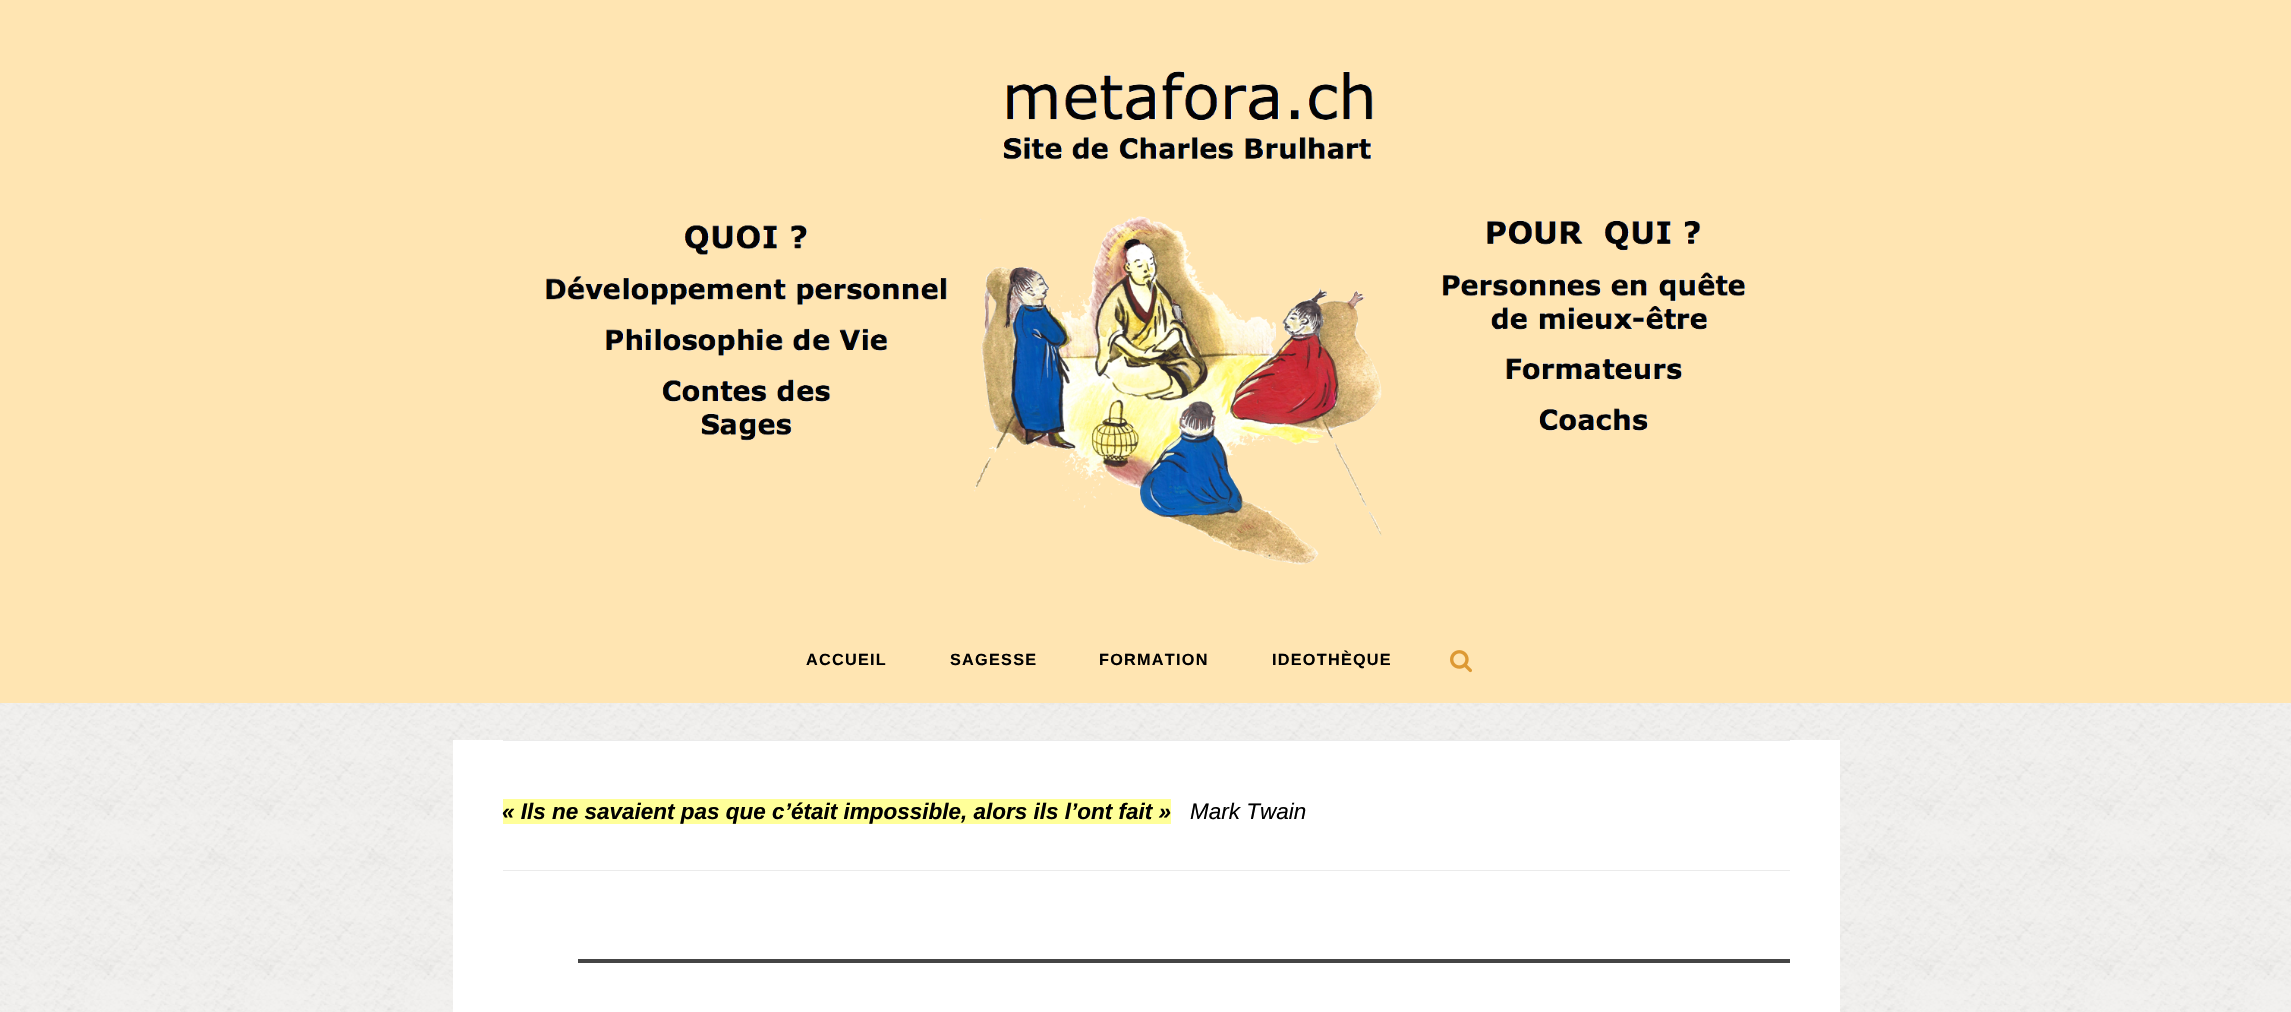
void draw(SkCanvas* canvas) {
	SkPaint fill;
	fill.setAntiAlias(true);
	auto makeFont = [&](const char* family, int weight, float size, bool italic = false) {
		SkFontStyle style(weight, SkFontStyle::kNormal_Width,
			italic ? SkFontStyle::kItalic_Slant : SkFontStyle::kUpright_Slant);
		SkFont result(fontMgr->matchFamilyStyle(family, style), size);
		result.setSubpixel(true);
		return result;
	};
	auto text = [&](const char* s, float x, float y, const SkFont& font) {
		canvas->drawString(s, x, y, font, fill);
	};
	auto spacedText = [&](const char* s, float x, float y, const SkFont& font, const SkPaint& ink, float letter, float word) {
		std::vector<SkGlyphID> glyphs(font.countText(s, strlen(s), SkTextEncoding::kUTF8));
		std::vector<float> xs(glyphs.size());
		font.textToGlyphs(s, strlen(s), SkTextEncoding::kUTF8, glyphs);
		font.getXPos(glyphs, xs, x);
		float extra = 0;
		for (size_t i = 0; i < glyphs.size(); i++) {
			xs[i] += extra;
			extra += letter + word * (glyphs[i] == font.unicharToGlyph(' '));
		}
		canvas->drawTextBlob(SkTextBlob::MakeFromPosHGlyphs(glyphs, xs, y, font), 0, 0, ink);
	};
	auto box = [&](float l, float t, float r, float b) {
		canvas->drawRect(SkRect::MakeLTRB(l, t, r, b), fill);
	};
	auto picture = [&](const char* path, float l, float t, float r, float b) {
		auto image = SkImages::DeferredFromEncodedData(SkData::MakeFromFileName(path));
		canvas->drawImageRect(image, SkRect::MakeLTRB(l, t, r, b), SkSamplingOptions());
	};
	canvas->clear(0xFFFFFFFF);
	picture("image0.png", 0, 703, 2291, 1012);
	fill.setColor(0xFFFFE5B2);
	box(0, 0, 2291, 703);
	picture("image1.png", 546, 71, 1745, 565);
	picture("image2.png", 1450, 650, 1472, 673);
	fill.setColor(0xFFFFFFFF);
	box(453, 740, 1840, 1012);
	fill.setColor(0xFFEBEBEB);
	box(503, 740, 1790, 741);
	box(503, 870, 1790, 871);
	fill.setColor(0xFFFFFF99);
	box(503, 799, 1171, 824);
	fill.setColor(0xFF454545);
	box(578, 959, 1790, 963);
	auto font1 = makeFont("Liberation Sans", 700, 16.25f);
	fill.setColor(0xFF000000);
	spacedText("ACCUEIL", 806, 665, font1, fill, 1.25f, 0);
	spacedText("SAGESSE", 950, 665, font1, fill, 1.25f, 0);
	spacedText("FORMATION", 1099, 665, font1, fill, 1.25f, 0);
	spacedText("IDEOTHÈQUE", 1272, 665, font1, fill, 1.25f, 0);
	auto font2 = makeFont("Liberation Sans", 700, 22.5f, true);
	text("« Ils ne savaient pas que c’était impossible, alors ils l’ont fait »", 502, 819, font2);
	auto font3 = makeFont("Liberation Sans", 400, 22.5f, true);
	text("Mark Twain", 1190, 819, font3);
}
